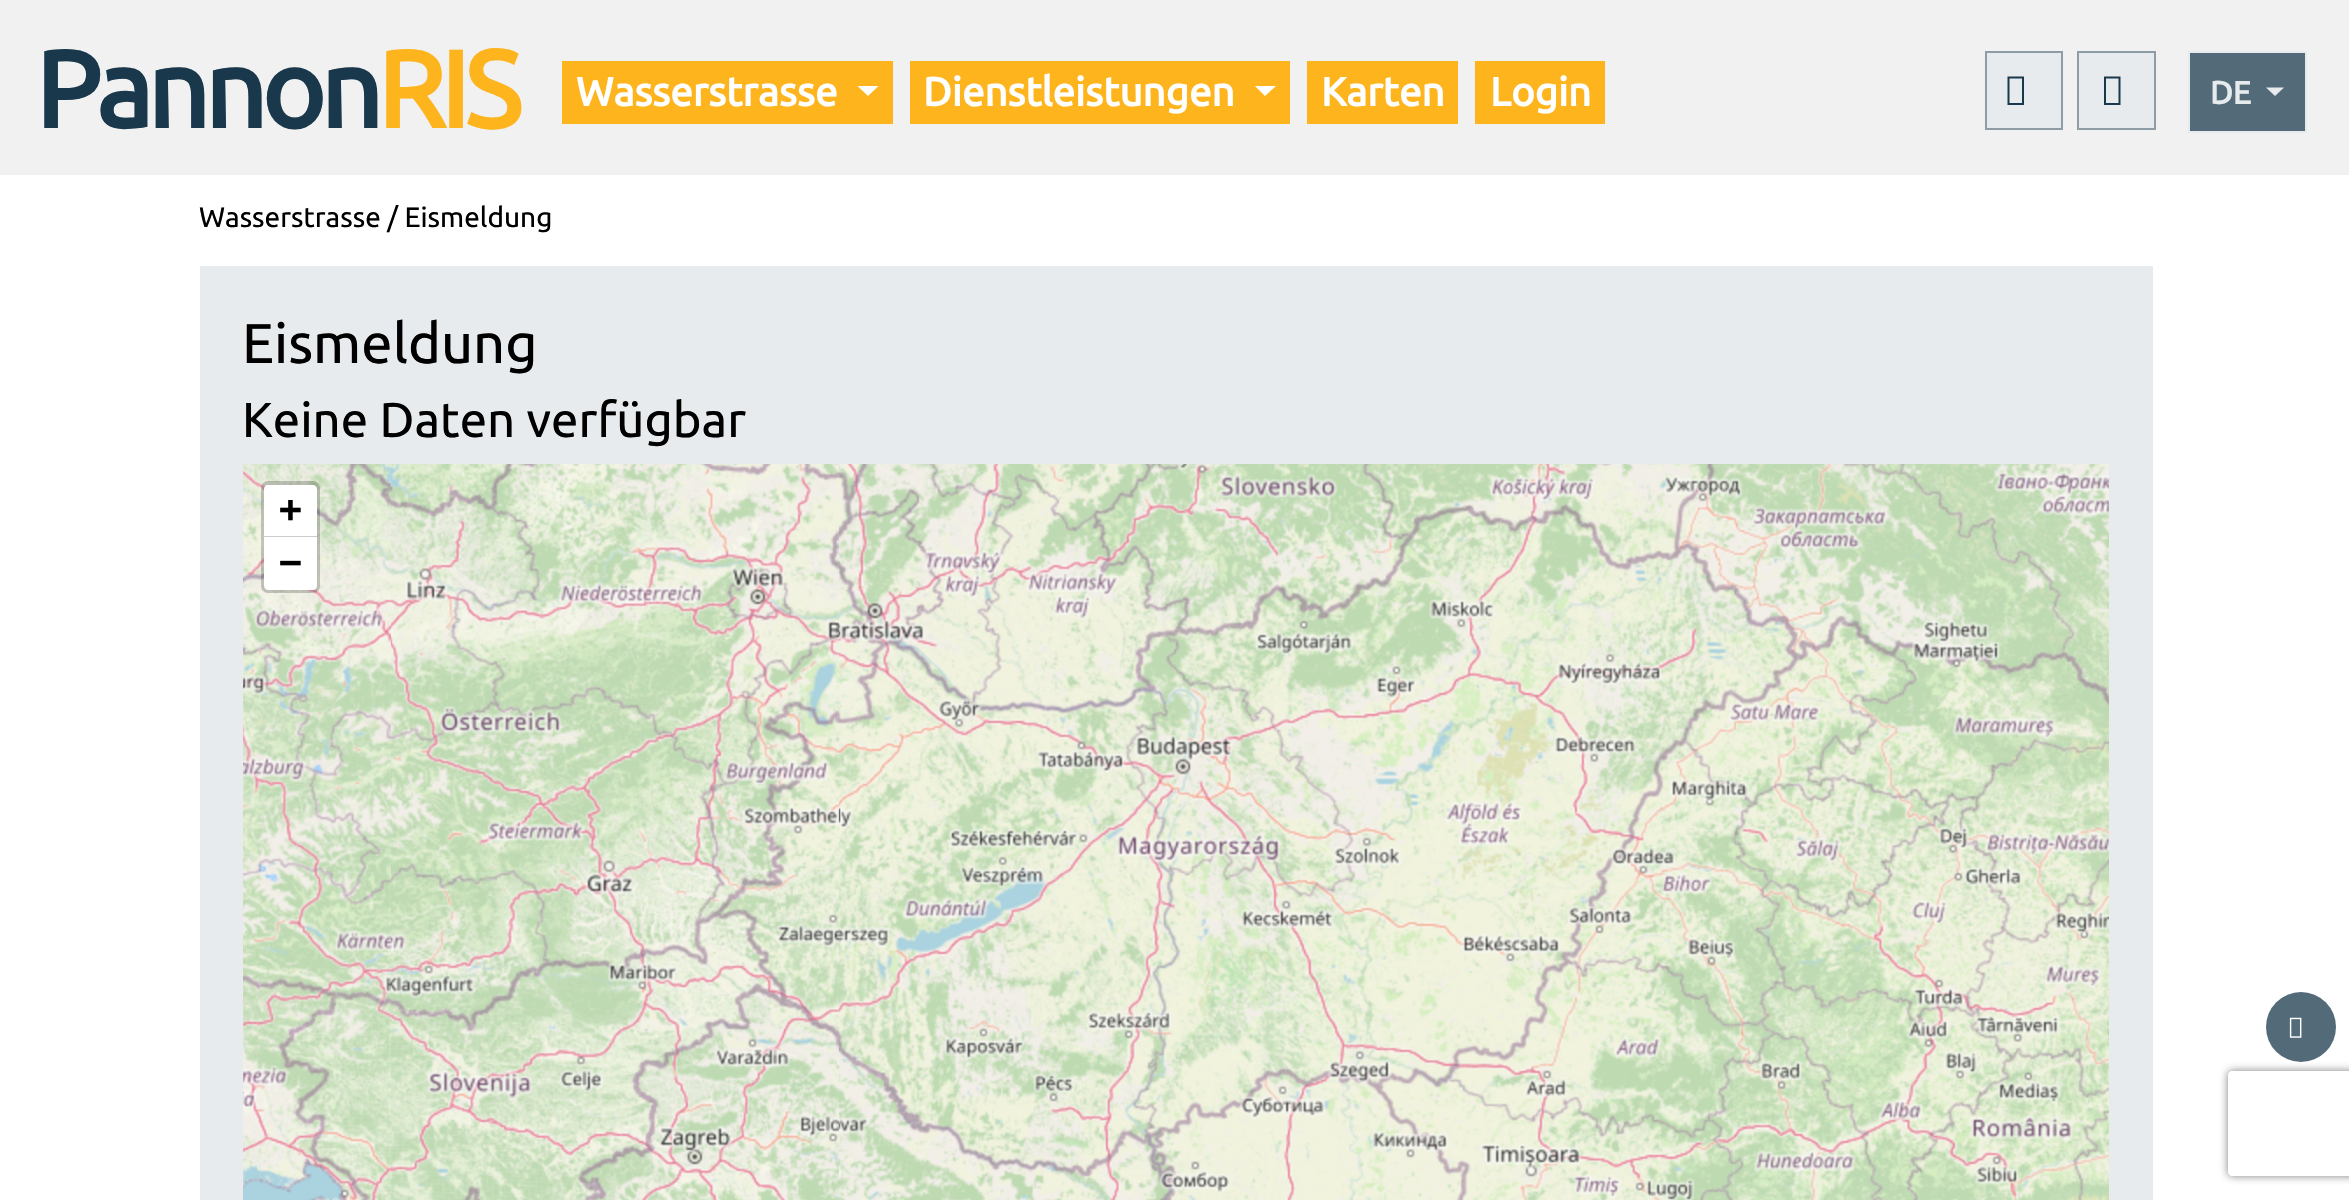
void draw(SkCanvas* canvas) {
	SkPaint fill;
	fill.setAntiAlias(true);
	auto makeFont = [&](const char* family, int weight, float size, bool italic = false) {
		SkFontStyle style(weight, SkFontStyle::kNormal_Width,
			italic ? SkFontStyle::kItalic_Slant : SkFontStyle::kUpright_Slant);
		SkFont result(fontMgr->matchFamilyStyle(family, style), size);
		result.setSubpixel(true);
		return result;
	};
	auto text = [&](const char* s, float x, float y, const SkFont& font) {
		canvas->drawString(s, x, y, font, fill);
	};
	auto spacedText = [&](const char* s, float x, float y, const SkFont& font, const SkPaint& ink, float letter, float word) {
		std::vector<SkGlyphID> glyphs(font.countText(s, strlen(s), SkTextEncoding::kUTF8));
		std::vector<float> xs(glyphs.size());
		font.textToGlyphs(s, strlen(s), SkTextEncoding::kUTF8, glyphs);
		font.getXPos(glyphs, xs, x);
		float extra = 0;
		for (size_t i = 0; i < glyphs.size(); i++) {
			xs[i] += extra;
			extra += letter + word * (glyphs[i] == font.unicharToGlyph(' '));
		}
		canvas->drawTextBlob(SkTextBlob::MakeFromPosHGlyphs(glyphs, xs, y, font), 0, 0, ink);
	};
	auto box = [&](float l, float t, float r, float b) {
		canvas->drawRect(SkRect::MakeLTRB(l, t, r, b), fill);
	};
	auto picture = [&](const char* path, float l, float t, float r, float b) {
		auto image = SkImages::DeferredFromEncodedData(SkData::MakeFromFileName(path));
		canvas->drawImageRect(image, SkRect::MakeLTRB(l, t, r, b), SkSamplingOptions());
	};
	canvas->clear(0xFFFFFFFF);
	fill.setColor(0xFFF1F1F1);
	box(0, 0, 2349, 175);
	fill.setColor(0xFFFEB41C);
	box(562, 61, 893, 124);
	fill.setColor(0xFFFFFFFF);
	canvas->drawPath(SkPathBuilder().moveTo(857.5f, 86).lineTo(878.5f, 86).lineTo(868, 96).close().detach(), fill);
	fill.setColor(0xFFFEB41C);
	box(910, 61, 1290, 124);
	fill.setColor(0xFFFFFFFF);
	canvas->drawPath(SkPathBuilder().moveTo(1255, 86).lineTo(1276, 86).lineTo(1265, 96).close().detach(), fill);
	fill.setColor(0xFFFEB41C);
	box(1307, 61, 1458, 124);
	box(1475, 61, 1605, 124);
	fill.setColor(0xFFE8EBED);
	canvas->drawRect(SkRect::MakeLTRB(1986, 52, 2062, 129), fill);
	fill.setStyle(SkPaint::kStroke_Style);
	fill.setStrokeWidth(2);
	fill.setColor(0xFF8D9CA5);
	canvas->drawRect(SkRect::MakeLTRB(1986, 52, 2062, 129), fill);
	fill.setStyle(SkPaint::kFill_Style);
	fill.setColor(0xFF1A384C);
	canvas->drawPath(SkPathBuilder().moveTo(2007.5f, 105).lineTo(2007.5f, 76.5f).lineTo(2024, 76.5f).lineTo(2024, 105).close().moveTo(2009.5f, 103).lineTo(2022, 103).lineTo(2022, 78.5f).lineTo(2009.5f, 78.5f).close().detach(), fill);
	fill.setColor(0xFFE8EBED);
	canvas->drawRect(SkRect::MakeLTRB(2078, 52, 2155, 129), fill);
	fill.setStyle(SkPaint::kStroke_Style);
	fill.setColor(0xFF8D9CA5);
	canvas->drawRect(SkRect::MakeLTRB(2078, 52, 2155, 129), fill);
	fill.setStyle(SkPaint::kFill_Style);
	fill.setColor(0xFF1A384C);
	canvas->drawPath(SkPathBuilder().moveTo(2104, 105).lineTo(2104, 76.5f).lineTo(2120.5f, 76.5f).lineTo(2120.5f, 105).close().moveTo(2106, 103).lineTo(2118.5f, 103).lineTo(2118.5f, 78.5f).lineTo(2106, 78.5f).close().detach(), fill);
	fill.setColor(0xFF536A79);
	canvas->drawRect(SkRect::MakeLTRB(2189, 52, 2306, 132), fill);
	fill.setStyle(SkPaint::kStroke_Style);
	fill.setColor(0xFFE8EBED);
	canvas->drawRect(SkRect::MakeLTRB(2189, 52, 2306, 132), fill);
	fill.setStyle(SkPaint::kFill_Style);
	canvas->drawPath(SkPathBuilder().moveTo(2266, 87.5f).lineTo(2284, 87.5f).lineTo(2275, 96).close().detach(), fill);
	box(200, 266, 2153, 1200);
	picture("image2.png", 837, 464, 1287, 874);
	picture("image3.png", 1285, 464, 1735, 874);
	picture("image7.png", 837, 872, 1287, 1200);
	picture("image1.png", 389, 464, 839, 874);
	picture("image6.png", 389, 872, 839, 1200);
	picture("image0.png", 243, 464, 391, 874);
	picture("image8.png", 1285, 872, 1735, 1200);
	picture("image4.png", 1733, 464, 2109, 874);
	picture("image5.png", 243, 872, 391, 1200);
	picture("image9.png", 1733, 872, 2109, 1200);
	fill.setStyle(SkPaint::kStroke_Style);
	fill.setStrokeWidth(4);
	fill.setColor(0x33000000);
	canvas->drawRoundRect(SkRect::MakeLTRB(263, 483, 318, 591), 5, 5, fill);
	fill.setStyle(SkPaint::kFill_Style);
	fill.setColor(0xFFFFFFFF);
	canvas->drawPath(SkPathBuilder().moveTo(268, 485).lineTo(313, 485).cubicTo(315, 485, 317, 487, 317, 489).lineTo(317, 537).lineTo(264, 537).lineTo(264, 489).cubicTo(264, 487, 266, 485, 268, 485).close().detach(), fill);
	fill.setColor(0xFFCCCCCC);
	box(264, 536, 317, 537);
	fill.setColor(0xFFFFFFFF);
	canvas->drawPath(SkPathBuilder().moveTo(264, 537).lineTo(317, 537).lineTo(317, 586).cubicTo(317, 588, 315, 590, 313, 590).lineTo(268, 590).cubicTo(266, 590, 264, 588, 264, 586).close().detach(), fill);
	fill.setColor(0xFF536A79);
	canvas->drawCircle(2301, 1027, 35, fill);
	picture("image10.png", 2289, 1017, 2302, 1038);
	canvas->save();
	canvas->clipPath(SkPathBuilder(SkPathFillType::kEvenOdd).moveTo(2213, 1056).lineTo(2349, 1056).lineTo(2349, 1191).lineTo(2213, 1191).close().moveTo(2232, 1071).lineTo(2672, 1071).cubicTo(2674, 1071, 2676, 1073, 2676, 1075).lineTo(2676, 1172).cubicTo(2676, 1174, 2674, 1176, 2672, 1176).lineTo(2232, 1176).cubicTo(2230, 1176, 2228, 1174, 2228, 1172).lineTo(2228, 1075).cubicTo(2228, 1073, 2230, 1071, 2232, 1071).close().detach(), true);
	fill.setColor(0xFF808080);
	fill.setMaskFilter(SkMaskFilter::MakeBlur(kNormal_SkBlurStyle, 4.5f));
	canvas->drawRoundRect(SkRect::MakeLTRB(2228, 1071, 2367, 1176), 4, 4, fill);
	fill.setMaskFilter(nullptr);
	canvas->restore();
	auto font1 = makeFont("Ubuntu", 700, 108.5f);
	fill.setColor(0xFF1A384C);
	spacedText("Pannon", 35, 128, font1, fill, -5.25f, 0);
	fill.setColor(0xFFFEB41C);
	spacedText("RIS", 377, 128, font1, fill, -5.25f, 0);
	auto font2 = makeFont("Ubuntu", 700, 40.25f);
	fill.setColor(0xFFFFFFFF);
	text("Wasserstrasse", 576, 106, font2);
	text("Dienstleistungen", 923, 106, font2);
	text("Karten", 1321, 106, font2);
	text("Login", 1490, 106, font2);
	auto font3 = makeFont("Ubuntu", 700, 32);
	fill.setColor(0xFFE8EBED);
	text("DE", 2210, 104, font3);
	auto font4 = makeFont("Ubuntu", 400, 28);
	fill.setColor(0xFF000000);
	text("Wasserstrasse / Eismeldung", 199, 227, font4);
	auto font5 = makeFont("Ubuntu", 400, 56);
	text("Eismeldung", 242, 363, font5);
	auto font6 = makeFont("Ubuntu", 400, 49);
	text("Keine Daten verfügbar", 242, 437, font6);
	auto font7 = makeFont("DejaVu Sans Mono", 700, 38);
	text("+", 279, 522, font7);
	text("−", 279, 575, font7);
}
